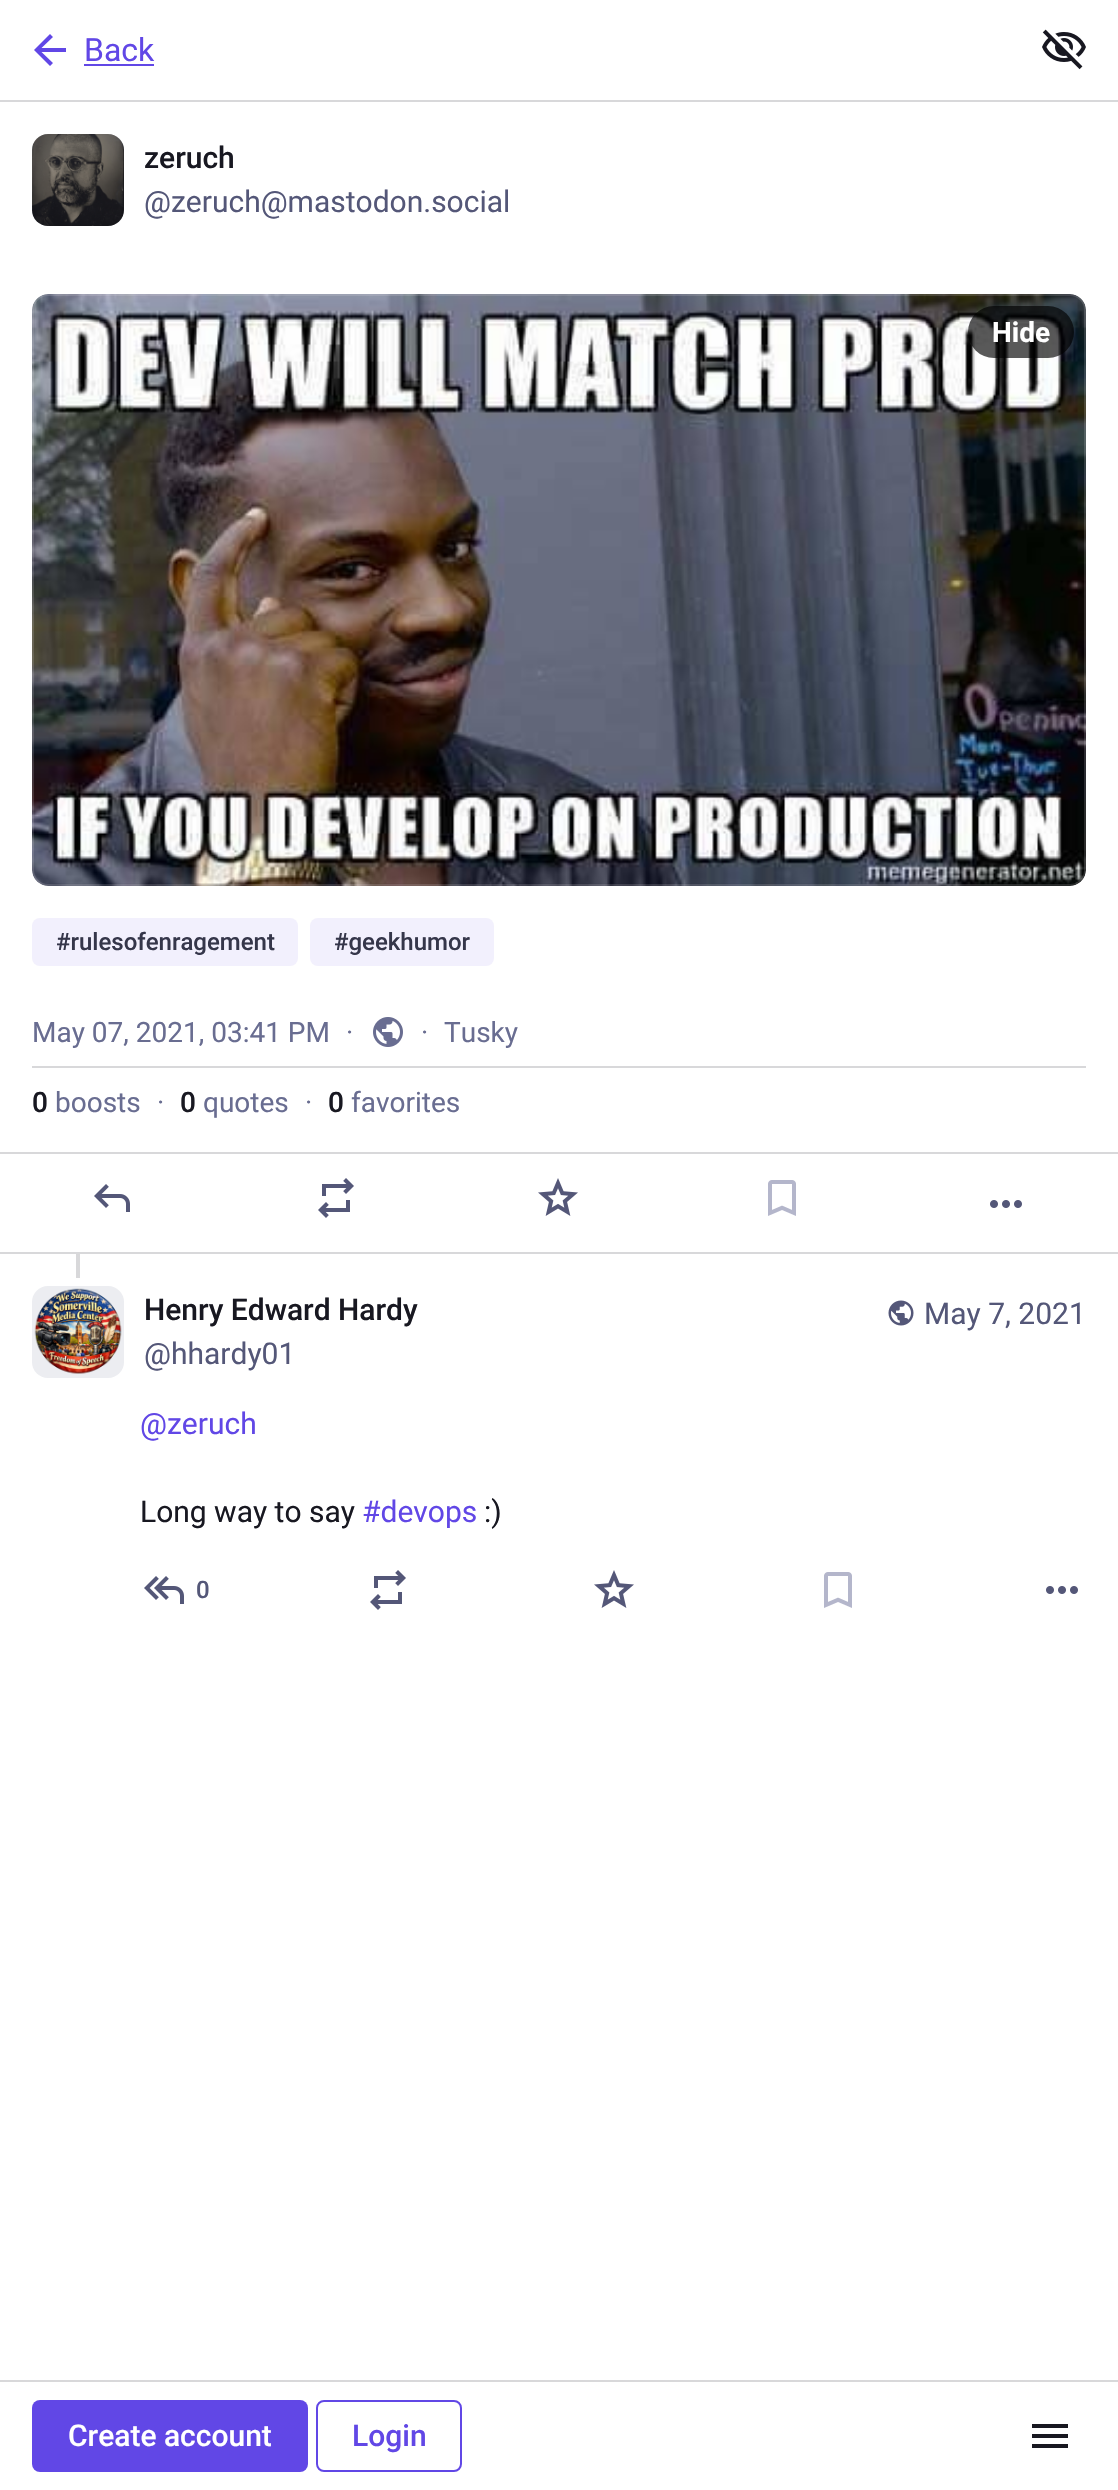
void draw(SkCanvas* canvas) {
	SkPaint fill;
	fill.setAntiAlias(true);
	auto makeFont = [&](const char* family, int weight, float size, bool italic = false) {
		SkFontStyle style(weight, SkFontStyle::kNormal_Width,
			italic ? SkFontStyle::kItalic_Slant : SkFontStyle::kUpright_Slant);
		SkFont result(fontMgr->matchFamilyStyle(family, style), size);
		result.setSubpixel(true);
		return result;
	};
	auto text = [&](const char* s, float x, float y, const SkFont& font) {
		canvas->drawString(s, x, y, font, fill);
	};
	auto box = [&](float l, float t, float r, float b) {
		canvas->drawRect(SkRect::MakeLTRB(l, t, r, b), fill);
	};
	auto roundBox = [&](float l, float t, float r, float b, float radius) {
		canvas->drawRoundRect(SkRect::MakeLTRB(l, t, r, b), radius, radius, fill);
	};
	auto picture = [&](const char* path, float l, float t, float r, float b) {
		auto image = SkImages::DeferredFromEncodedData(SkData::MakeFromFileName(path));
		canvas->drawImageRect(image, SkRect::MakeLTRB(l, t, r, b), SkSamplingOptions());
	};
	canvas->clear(0xFFFFFFFF);
	fill.setColor(0xFFD8D8DA);
	box(0, 100, 1118, 102);
	fill.setColor(0xFF6147E6);
	canvas->drawPath(SkPathBuilder().moveTo(41.5f, 52).lineTo(53, 63).lineTo(50, 66).lineTo(34, 50).lineTo(50, 34).lineTo(53, 37).lineTo(41.5f, 48).lineTo(66, 48).lineTo(66, 52).close().detach(), fill);
	box(84, 64, 154, 66);
	picture("image0.png", 1042, 29, 1086, 70);
	fill.setColor(0xFFECEDF1);
	roundBox(32, 134, 124, 226, 16);
	picture("image1.png", 32, 134, 124, 226);
	picture("image2.png", 32, 294, 1086, 886);
	fill.setStyle(SkPaint::kStroke_Style);
	fill.setStrokeWidth(2);
	fill.setColor(0x26FCF8FF);
	canvas->drawRoundRect(SkRect::MakeLTRB(33, 295, 1085, 885), 15, 15, fill);
	fill.setStyle(SkPaint::kFill_Style);
	fill.setColor(0xA6000000);
	roundBox(968, 306, 1074, 358, 26);
	fill.setColor(0xFFF2F0FD);
	roundBox(32, 918, 298, 966, 8);
	roundBox(310, 918, 494, 966, 8);
	fill.setColor(0xFFD8D8DA);
	box(32, 1066, 1086, 1068);
	picture("image3.png", 373, 1017, 403, 1047);
	box(0, 1152, 1118, 1154);
	box(0, 1252, 1118, 1254);
	picture("image4.png", 94, 1184, 130, 1212);
	picture("image5.png", 318, 1178, 354, 1218);
	picture("image6.png", 538, 1178, 578, 1216);
	picture("image7.png", 768, 1180, 796, 1216);
	picture("image8.png", 990, 1200, 1022, 1208);
	box(76, 1254, 80, 1278);
	fill.setColor(0xFFECEDF1);
	roundBox(32, 1286, 124, 1378, 16);
	picture("image9.png", 34, 1288, 122, 1374);
	picture("image10.png", 888, 1300, 914, 1326);
	picture("image11.png", 144, 1576, 184, 1604);
	picture("image5.png", 370, 1570, 406, 1610);
	picture("image6.png", 594, 1570, 634, 1608);
	picture("image7.png", 824, 1572, 852, 1608);
	picture("image8.png", 1046, 1586, 1078, 1594);
	fill.setColor(0xFFD8D8DA);
	box(0, 2380, 1118, 2382);
	fill.setColor(0xFF6147E6);
	roundBox(32, 2400, 308, 2472, 8);
	fill.setStyle(SkPaint::kStroke_Style);
	canvas->drawRoundRect(SkRect::MakeLTRB(317, 2401, 461, 2471), 7, 7, fill);
	fill.setStyle(SkPaint::kFill_Style);
	fill.setColor(0xFF181821);
	canvas->drawPath(SkPathBuilder().moveTo(1032, 2448).lineTo(1032, 2444).lineTo(1068, 2444).lineTo(1068, 2448).close().moveTo(1032, 2438).lineTo(1032, 2434).lineTo(1068, 2434).lineTo(1068, 2438).close().moveTo(1032, 2428).lineTo(1032, 2424).lineTo(1068, 2424).lineTo(1068, 2428).close().detach(), fill);
	auto font1 = makeFont("Roboto", 400, 32);
	fill.setColor(0xFF6147E6);
	text("Back", 84, 61, font1);
	auto font2 = makeFont("Roboto", 500, 30);
	fill.setColor(0xFF181821);
	text("zeruch", 144, 168, font2);
	auto font3 = makeFont("Roboto", 400, 30);
	fill.setColor(0xFF545778);
	text("@zeruch@mastodon.social", 144, 212, font3);
	auto font4 = makeFont("Roboto", 700, 28);
	fill.setColor(0xFFFFFFFF);
	text("Hide", 992, 342, font4);
	auto font5 = makeFont("Roboto", 500, 24);
	fill.setColor(0xFF35364A);
	text("#rulesofenragement", 56, 950, font5);
	text("#geekhumor", 334, 950, font5);
	auto font6 = makeFont("Roboto", 400, 28);
	fill.setColor(0xFF696D91);
	text("May 07, 2021, 03:41 PM", 32, 1042, font6);
	text("·", 346, 1042, font6);
	text("·", 421, 1042, font6);
	text("Tusky", 444, 1042, font6);
	auto font7 = makeFont("Roboto", 500, 28);
	fill.setColor(0xFF181821);
	text("0", 32, 1112, font7);
	fill.setColor(0xFF696D91);
	text("boosts", 55, 1112, font6);
	text("·", 157, 1112, font6);
	fill.setColor(0xFF181821);
	text("0", 180, 1112, font7);
	fill.setColor(0xFF696D91);
	text("quotes", 203, 1112, font6);
	text("·", 305, 1112, font6);
	fill.setColor(0xFF181821);
	text("0", 328, 1112, font7);
	fill.setColor(0xFF696D91);
	text("favorites", 351, 1112, font6);
	fill.setColor(0xFF181821);
	text("Henry Edward Hardy", 144, 1320, font2);
	fill.setColor(0xFF545778);
	text("@hhardy01", 144, 1364, font3);
	text("May 7, 2021", 924, 1324, font3);
	fill.setColor(0xFF6147E6);
	text("@zeruch", 140, 1434, font3);
	fill.setColor(0xFF181821);
	text("Long way to say", 140, 1522, font3);
	fill.setColor(0xFF6147E6);
	text("#devops", 362, 1522, font3);
	fill.setColor(0xFF181821);
	text(":)", 484, 1522, font3);
	fill.setColor(0xFF545778);
	text("0", 196, 1598, font5);
	fill.setColor(0xFFFFFFFF);
	text("Create account", 68, 2446, font2);
	fill.setColor(0xFF6147E6);
	text("Login", 352, 2446, font2);
}
